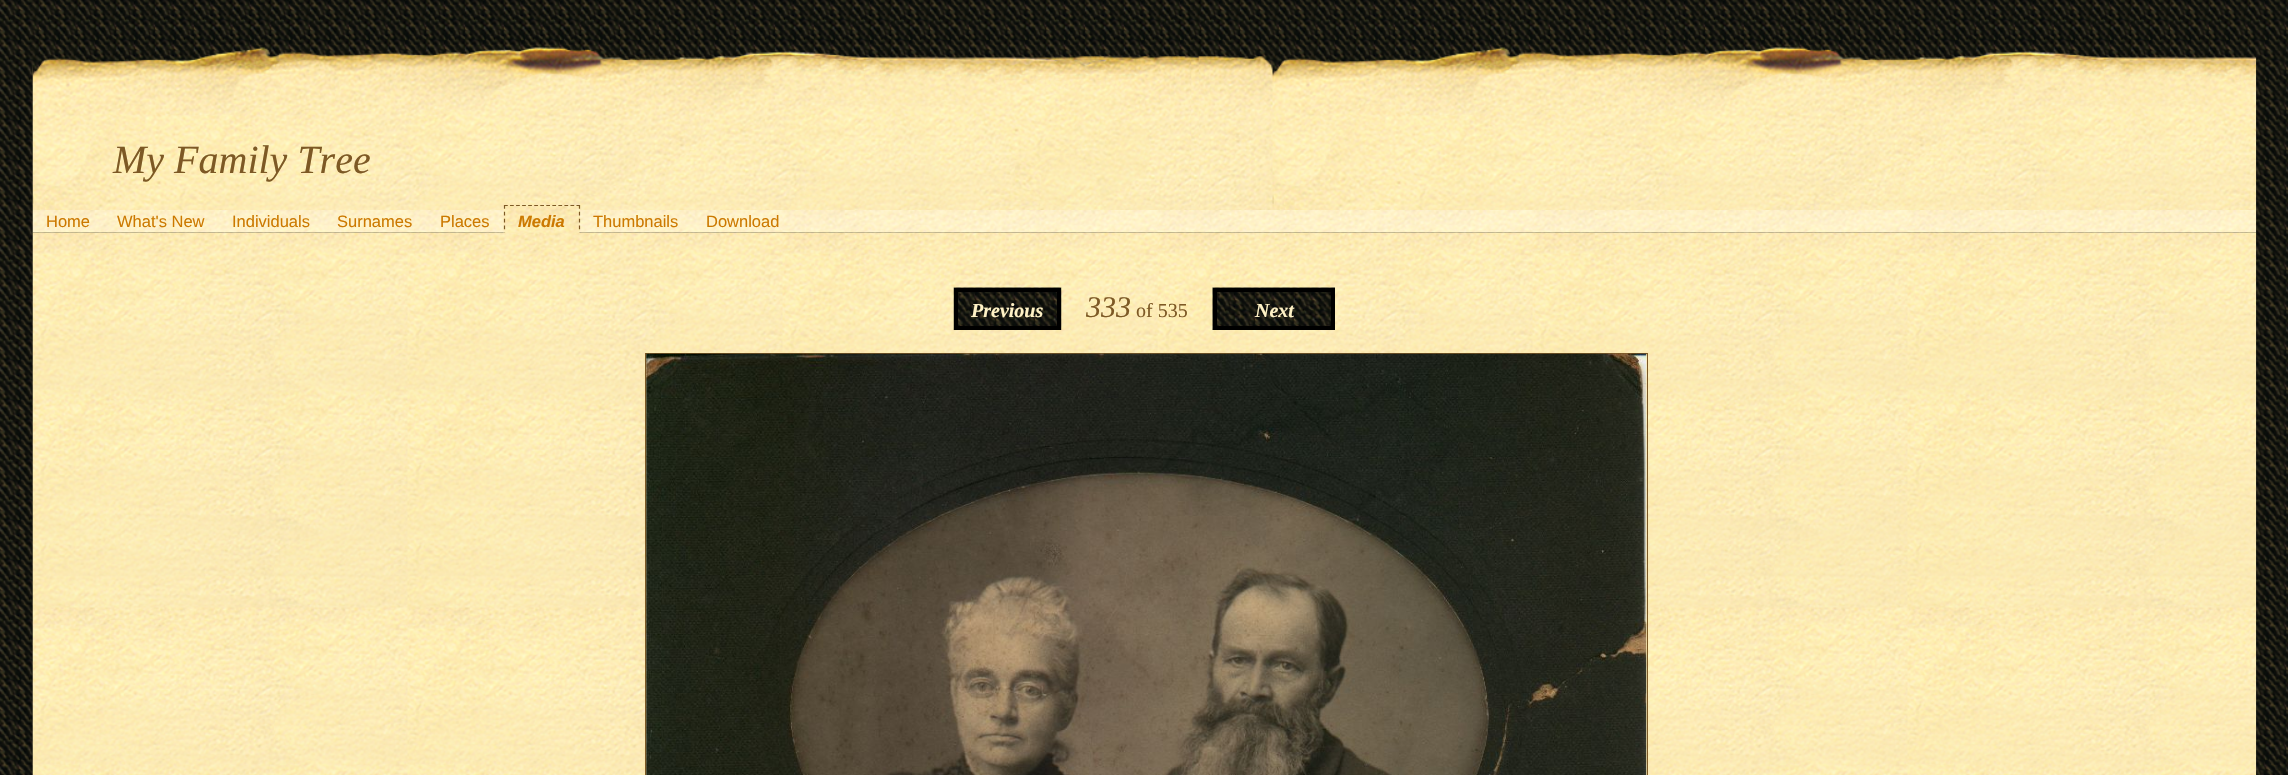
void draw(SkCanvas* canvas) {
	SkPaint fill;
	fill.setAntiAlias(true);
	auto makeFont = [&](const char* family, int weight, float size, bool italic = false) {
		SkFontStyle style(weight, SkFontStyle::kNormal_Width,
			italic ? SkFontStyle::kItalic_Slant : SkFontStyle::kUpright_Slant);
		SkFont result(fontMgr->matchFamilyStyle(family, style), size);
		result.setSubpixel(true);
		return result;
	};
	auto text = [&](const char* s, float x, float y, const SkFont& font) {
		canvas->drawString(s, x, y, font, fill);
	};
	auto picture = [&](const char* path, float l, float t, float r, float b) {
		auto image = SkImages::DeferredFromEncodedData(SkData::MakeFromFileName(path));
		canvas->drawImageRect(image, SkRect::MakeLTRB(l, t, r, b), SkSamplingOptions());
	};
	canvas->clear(0xFFFFFFFF);
	picture("image0.png", 0, 0, 2288, 775);
	picture("image1.png", 32, 47, 2257, 210);
	picture("image2.png", 32, 210, 2257, 233);
	picture("image3.png", 503, 205, 580, 233);
	fill.setStyle(SkPaint::kStroke_Style);
	fill.setStrokeWidth(1.2f);
	fill.setColor(0xFF7D5925);
	fill.setPathEffect(SkDashPathEffect::Make({{3.75f, 2.29f}}, 0));
	canvas->drawPath(SkPathBuilder().moveTo(504, 205.5f).lineTo(580, 205.5f).detach(), fill);
	fill.setPathEffect(nullptr);
	fill.setPathEffect(SkDashPathEffect::Make({{3.75f, 3.12f}}, 0));
	canvas->drawPath(SkPathBuilder().moveTo(579.5f, 205).lineTo(579.5f, 236).detach(), fill);
	fill.setPathEffect(nullptr);
	fill.setPathEffect(SkDashPathEffect::Make({{3.75f, 3.12f}}, 0));
	canvas->drawPath(SkPathBuilder().moveTo(504.5f, 205).lineTo(504.5f, 236).detach(), fill);
	fill.setPathEffect(nullptr);
	picture("image4.png", 32, 232, 2257, 775);
	picture("image5.png", 953, 287, 1062, 330);
	picture("image6.png", 1212, 287, 1335, 330);
	fill.setStrokeWidth(4);
	fill.setColor(0xFF000000);
	canvas->drawRect(SkRect::MakeLTRB(956, 290, 1059, 328), fill);
	canvas->drawRect(SkRect::MakeLTRB(1215, 290, 1333, 328), fill);
	fill.setStrokeWidth(1);
	fill.setColor(0xFF7D5925);
	canvas->drawRect(SkRect::MakeLTRB(645.5f, 353.5f, 1647.5f, 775.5f), fill);
	picture("image7.png", 646, 353, 1647, 775);
	auto font1 = makeFont("Liberation Serif", 400, 40, true);
	fill.setStyle(SkPaint::kFill_Style);
	text("My Family Tree", 113, 173, font1);
	auto font2 = makeFont("Liberation Sans", 400, 16.5f);
	fill.setColor(0xFFCC7900);
	text("Home", 46, 227, font2);
	text("What's New", 117, 227, font2);
	text("Individuals", 232, 227, font2);
	text("Surnames", 337, 227, font2);
	text("Places", 440, 227, font2);
	auto font3 = makeFont("Liberation Sans", 700, 16.5f, true);
	text("Media", 518, 227, font3);
	text("Thumbnails", 593, 227, font2);
	text("Download", 706, 227, font2);
	auto font4 = makeFont("Liberation Serif", 400, 30, true);
	fill.setColor(0xFF7D5925);
	text("333", 1086, 317, font4);
	auto font5 = makeFont("Liberation Serif", 400, 20);
	text("of 535", 1136, 317, font5);
	auto font6 = makeFont("Liberation Serif", 700, 20, true);
	fill.setColor(0xFFFFF2C6);
	text("Previous", 971, 317, font6);
	text("Next", 1255, 317, font6);
}
